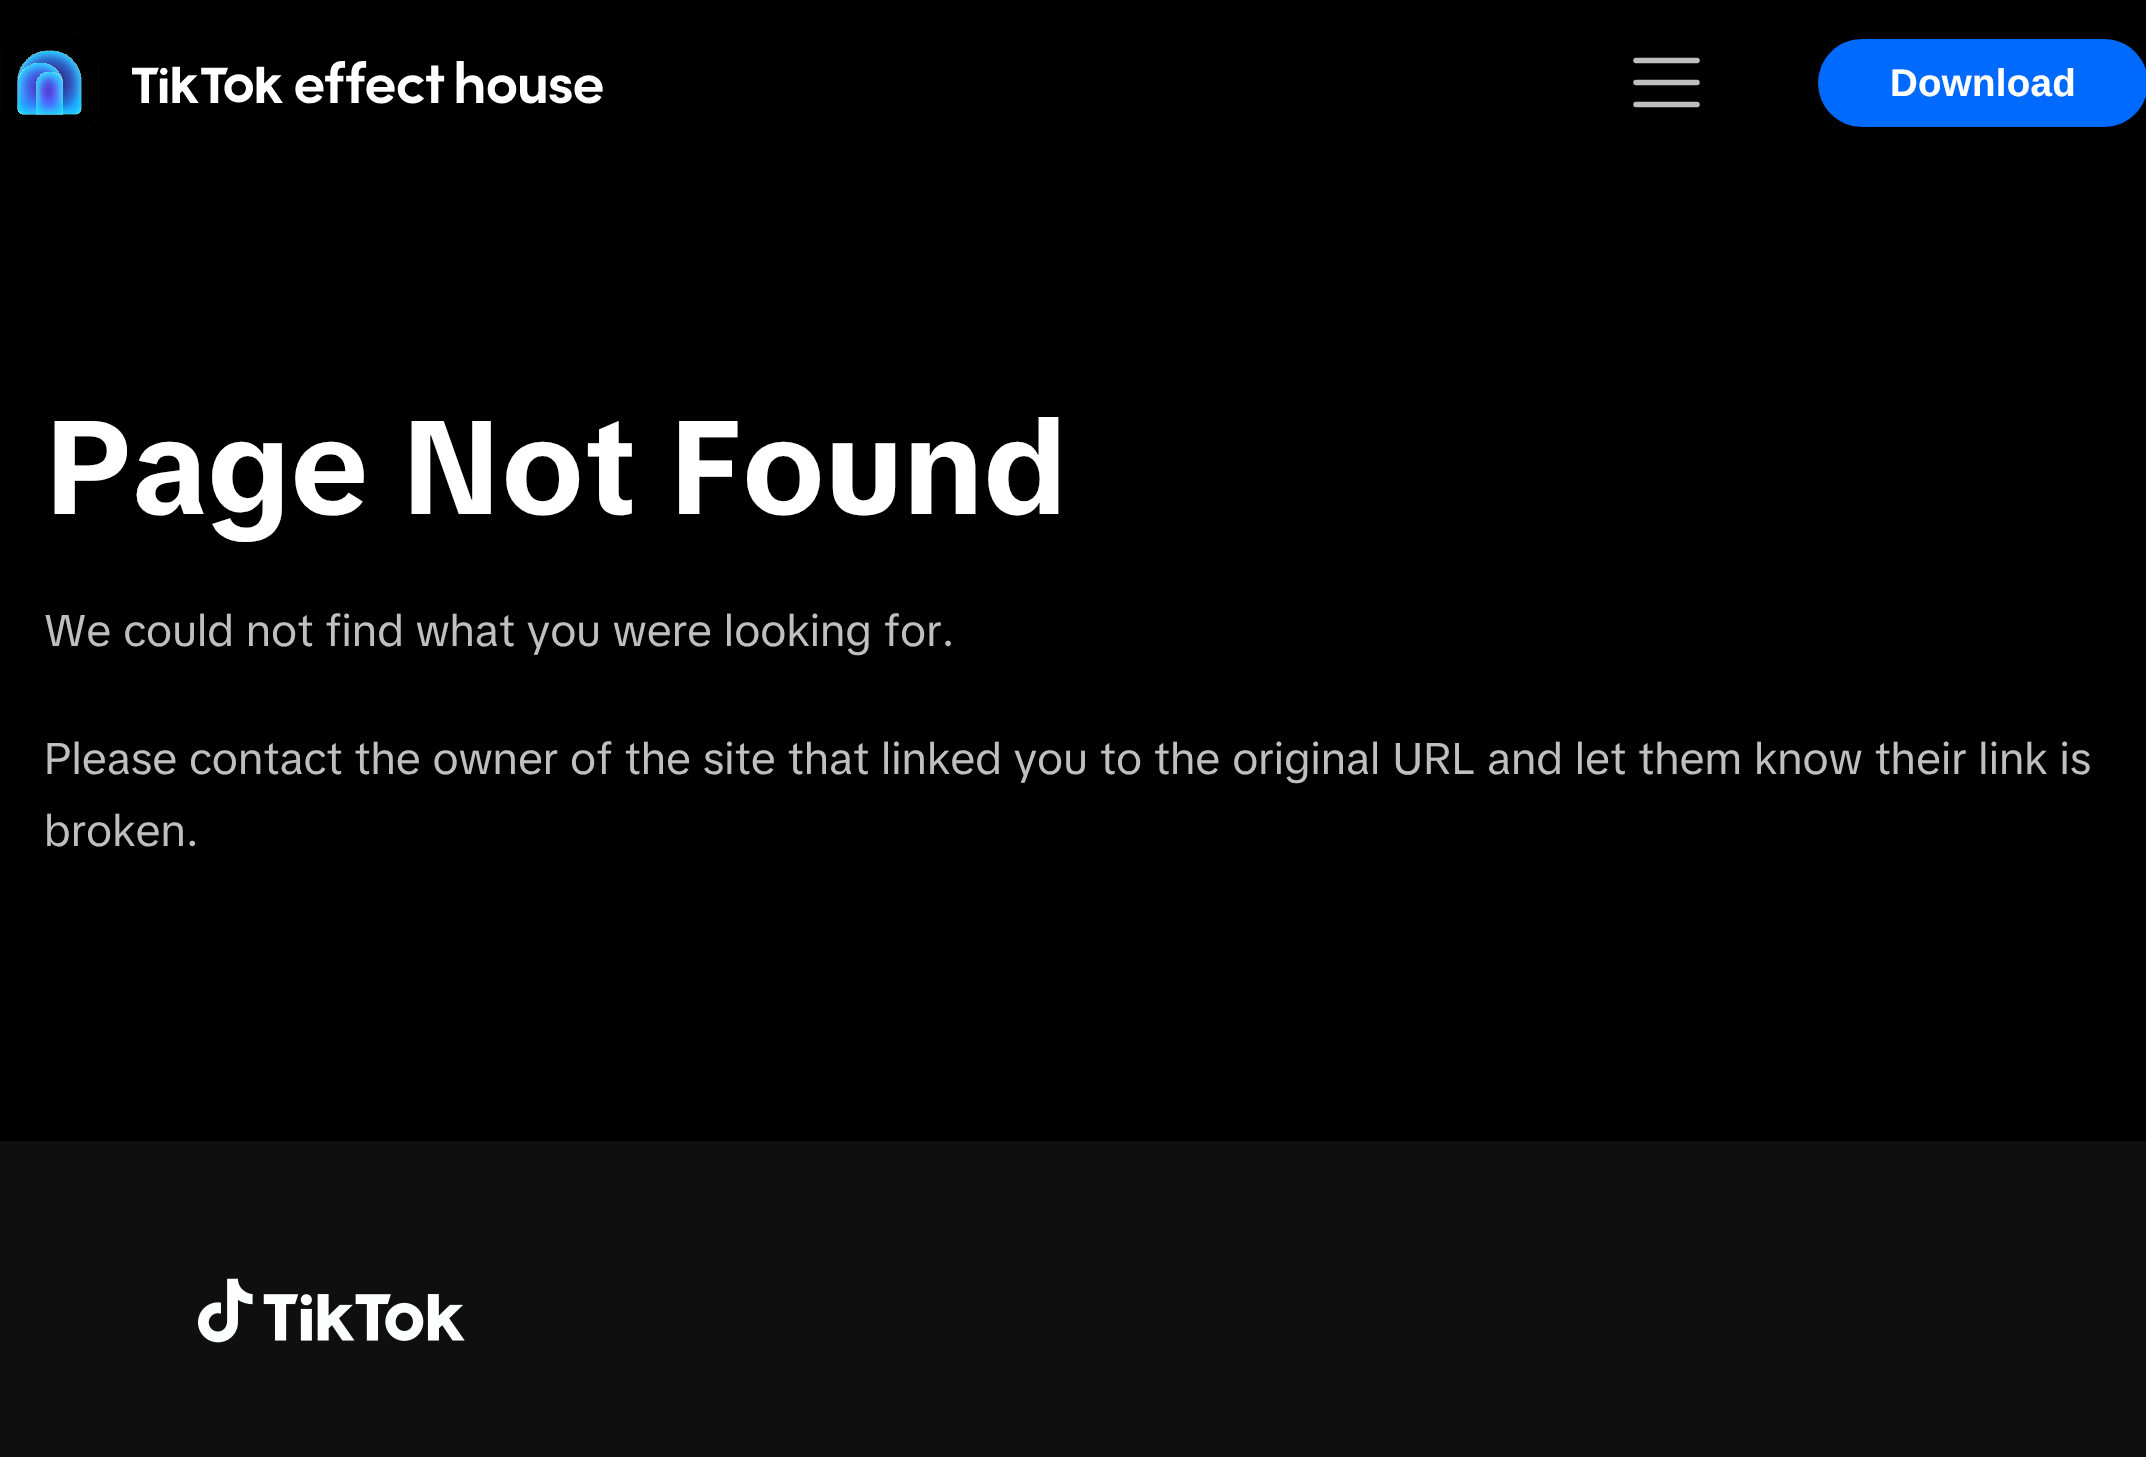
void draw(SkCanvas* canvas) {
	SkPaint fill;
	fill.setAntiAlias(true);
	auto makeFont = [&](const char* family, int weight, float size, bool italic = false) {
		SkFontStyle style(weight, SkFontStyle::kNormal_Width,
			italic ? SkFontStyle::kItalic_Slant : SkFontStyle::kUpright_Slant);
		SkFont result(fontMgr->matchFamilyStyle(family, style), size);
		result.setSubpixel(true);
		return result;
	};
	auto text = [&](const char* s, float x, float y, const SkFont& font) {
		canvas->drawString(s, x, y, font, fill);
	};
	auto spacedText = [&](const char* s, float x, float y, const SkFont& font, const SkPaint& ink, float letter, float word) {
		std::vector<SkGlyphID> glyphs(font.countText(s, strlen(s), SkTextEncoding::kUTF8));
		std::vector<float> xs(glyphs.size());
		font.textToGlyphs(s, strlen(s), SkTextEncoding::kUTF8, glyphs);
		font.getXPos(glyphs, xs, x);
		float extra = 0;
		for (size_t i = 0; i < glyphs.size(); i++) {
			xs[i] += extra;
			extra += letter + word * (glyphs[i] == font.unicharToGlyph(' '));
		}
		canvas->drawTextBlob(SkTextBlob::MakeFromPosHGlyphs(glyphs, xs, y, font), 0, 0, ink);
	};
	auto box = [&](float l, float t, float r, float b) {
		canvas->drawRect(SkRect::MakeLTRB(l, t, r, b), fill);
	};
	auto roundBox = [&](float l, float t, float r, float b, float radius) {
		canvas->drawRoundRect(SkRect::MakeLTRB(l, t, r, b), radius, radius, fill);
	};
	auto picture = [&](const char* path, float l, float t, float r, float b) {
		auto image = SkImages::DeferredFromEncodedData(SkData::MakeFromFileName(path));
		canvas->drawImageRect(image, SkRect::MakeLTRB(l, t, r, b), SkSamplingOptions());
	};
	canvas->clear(0xFF000000);
	picture("image0.png", 0, 33, 603, 132);
	fill.setStyle(SkPaint::kStroke_Style);
	fill.setStrokeWidth(5.5f);
	fill.setStrokeCap(SkPaint::kRound_Cap);
	fill.setColor(0xFFBFBFBF);
	canvas->drawPath(SkPathBuilder().moveTo(1636, 60.5f).lineTo(1697, 60.5f).moveTo(1636, 82.5f).lineTo(1697, 82.5f).moveTo(1636, 104.5f).lineTo(1697, 104.5f).detach(), fill);
	fill.setStyle(SkPaint::kFill_Style);
	fill.setColor(0xFF006AFF);
	roundBox(1818, 39, 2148, 127, 44);
	fill.setColor(0xFF0F0F0F);
	box(0, 1141, 2146, 1457);
	picture("image1.png", 198, 1278, 465, 1343);
	auto font1 = makeFont("Liberation Sans", 700, 38.5f);
	fill.setColor(0xFFFFFFFF);
	spacedText("Download", 1890, 96, font1, fill, 0.25f, 0);
	auto font2 = makeFont("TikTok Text", 700, 132);
	text("Page Not Found", 44, 514, font2);
	auto font3 = makeFont("TikTok Text", 400, 44);
	fill.setColor(0xFFBFBFBF);
	text("We could not find what you were looking for.", 44, 646, font3);
	text("Please contact the owner of the site that linked you to the original URL and let them know their link is", 44, 774, font3);
	text("broken.", 44, 846, font3);
}
